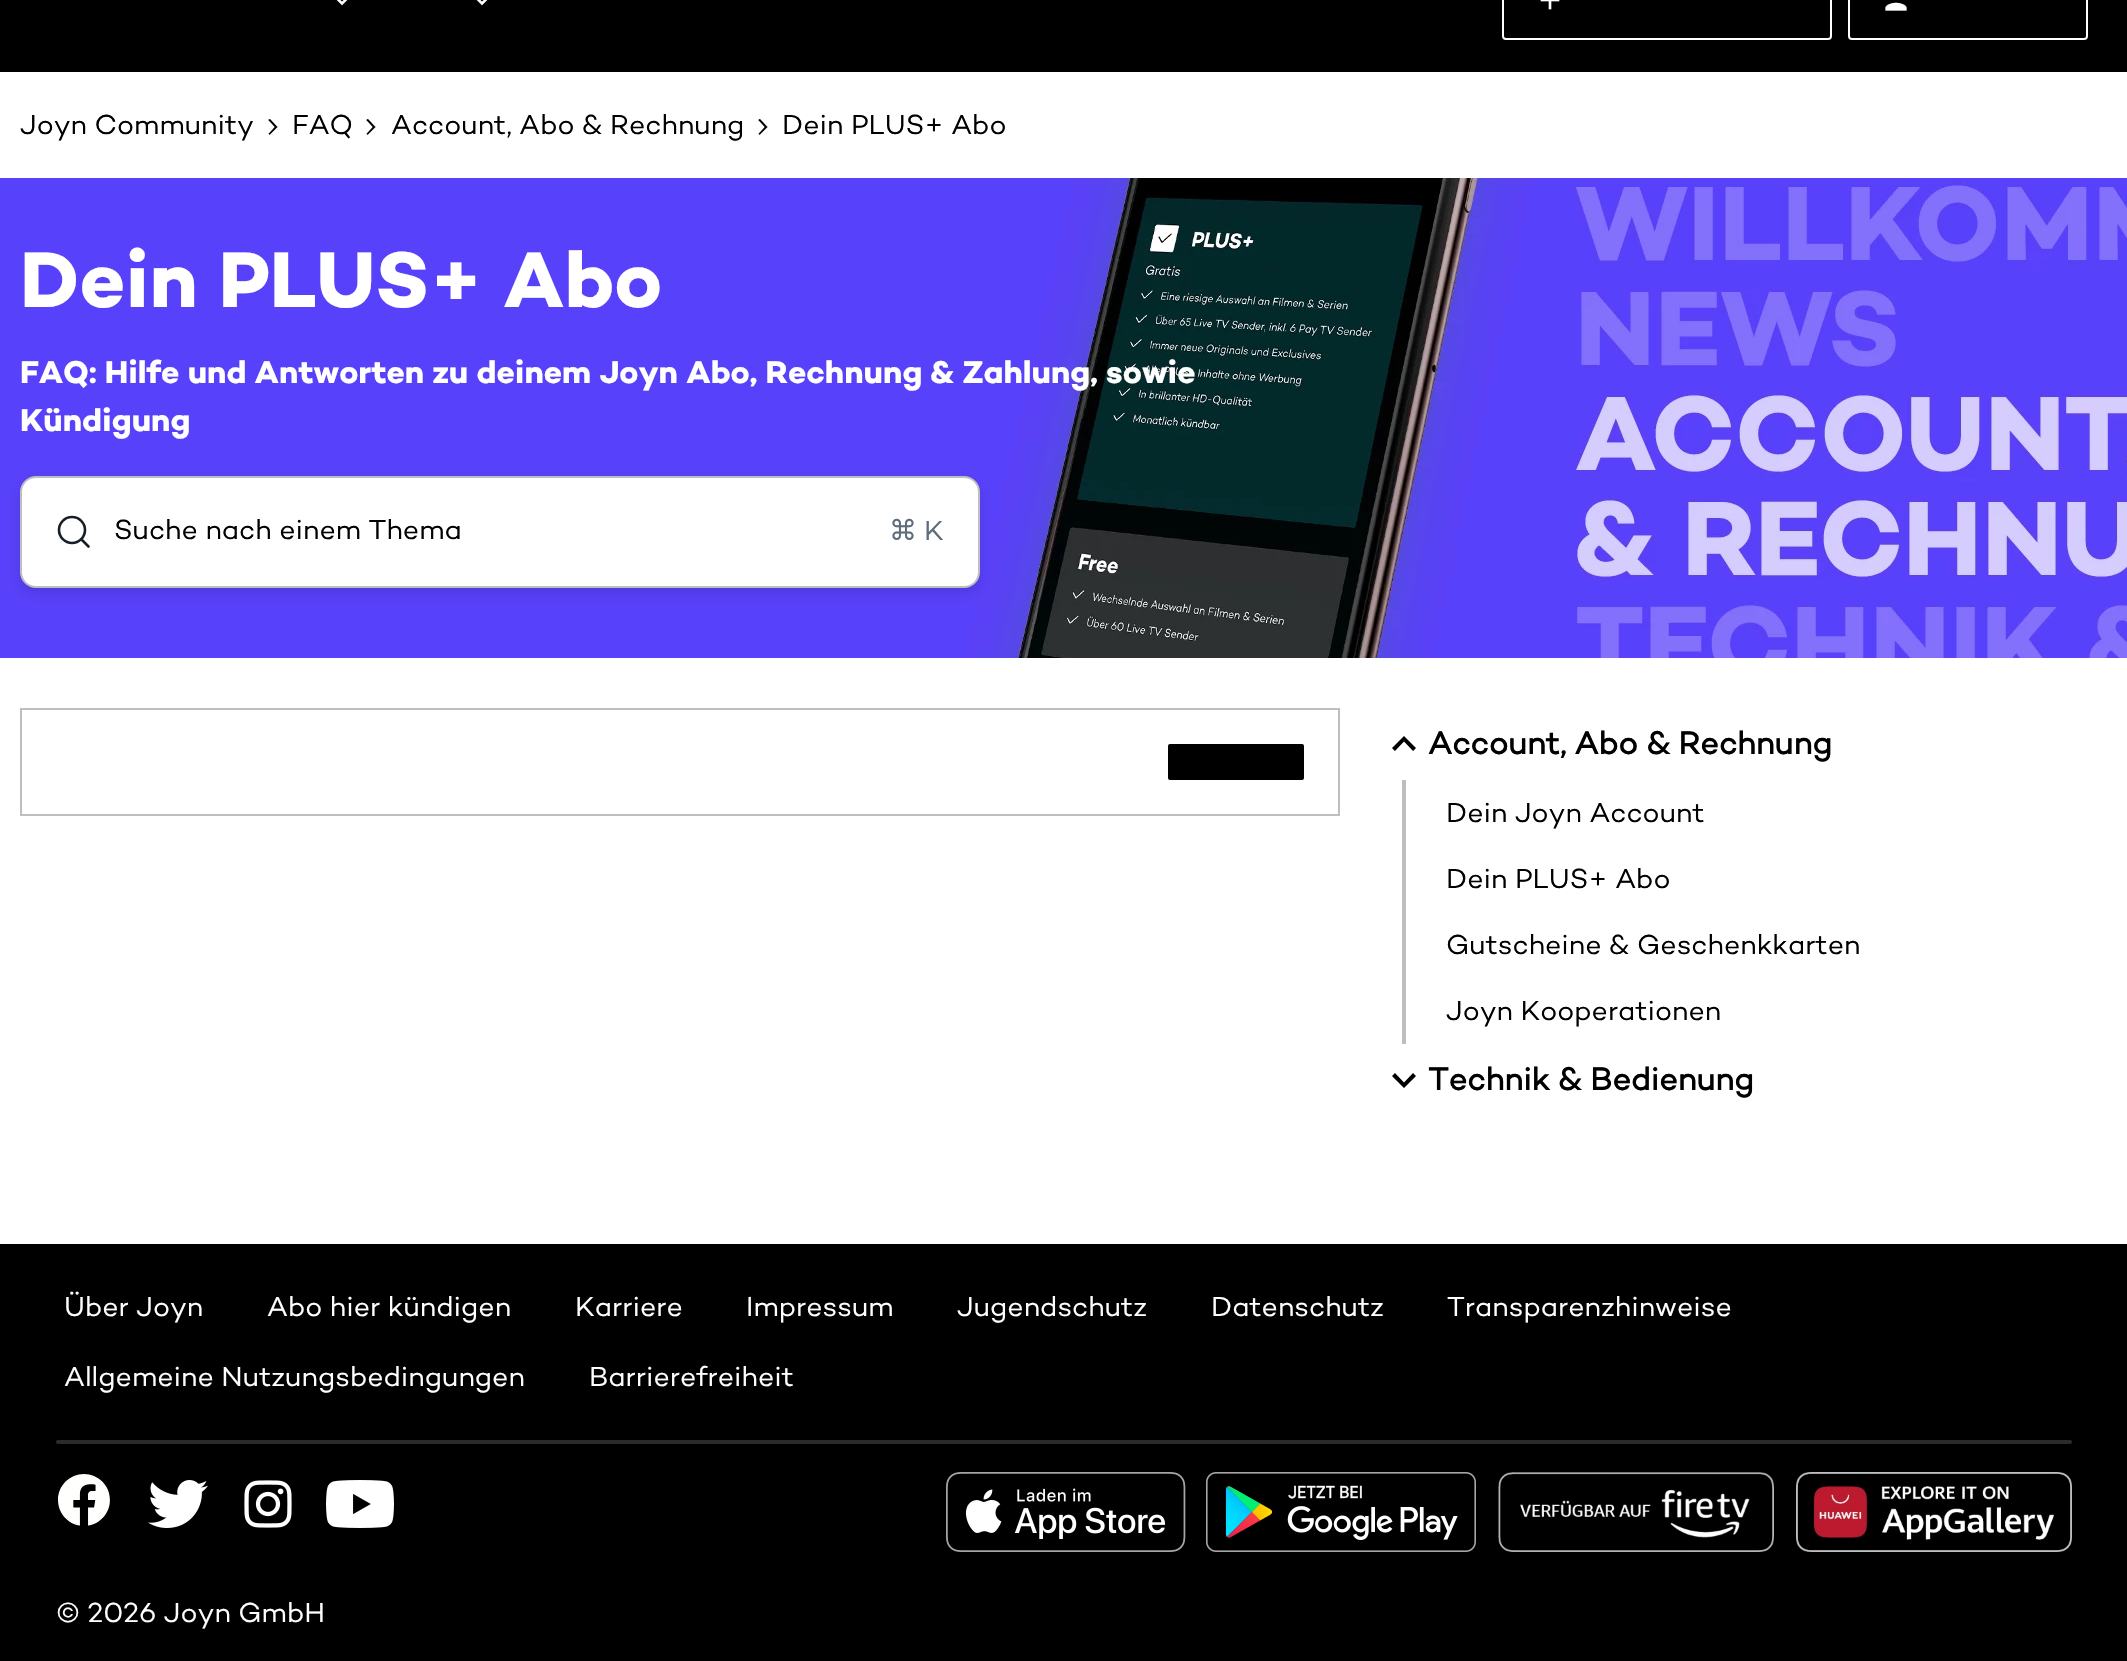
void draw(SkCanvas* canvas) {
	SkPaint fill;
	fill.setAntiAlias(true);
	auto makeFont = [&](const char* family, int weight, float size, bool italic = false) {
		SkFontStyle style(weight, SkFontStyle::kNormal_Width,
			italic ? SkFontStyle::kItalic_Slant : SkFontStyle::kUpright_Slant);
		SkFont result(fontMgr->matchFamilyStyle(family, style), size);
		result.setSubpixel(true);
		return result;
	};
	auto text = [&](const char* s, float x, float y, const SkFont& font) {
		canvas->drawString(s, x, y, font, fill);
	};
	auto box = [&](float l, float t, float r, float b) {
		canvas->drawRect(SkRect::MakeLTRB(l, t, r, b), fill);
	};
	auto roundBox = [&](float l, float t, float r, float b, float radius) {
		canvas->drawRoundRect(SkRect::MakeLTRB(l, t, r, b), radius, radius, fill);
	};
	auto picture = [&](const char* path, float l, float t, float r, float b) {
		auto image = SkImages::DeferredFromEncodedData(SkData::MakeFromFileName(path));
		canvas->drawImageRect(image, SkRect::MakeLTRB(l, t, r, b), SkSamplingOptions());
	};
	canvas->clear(0xFFFFFFFF);
	fill.setColor(0xFF000000);
	box(0, 0, 2127, 72);
	picture("image0.png", 336, 0, 348, 6);
	picture("image0.png", 476, 0, 488, 6);
	fill.setStyle(SkPaint::kStroke_Style);
	fill.setStrokeWidth(2);
	fill.setColor(0xFFFFFFFF);
	canvas->drawRoundRect(SkRect::MakeLTRB(1503, -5, 1831, 39), 3, 3, fill);
	picture("image1.png", 1540, 0, 1560, 10);
	canvas->drawRoundRect(SkRect::MakeLTRB(1849, -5, 2087, 39), 3, 3, fill);
	picture("image2.png", 1885, 2, 1907, 11);
	picture("image3.png", 268, 119, 278, 135);
	picture("image3.png", 366, 119, 376, 135);
	picture("image3.png", 758, 119, 768, 135);
	picture("image4.png", 0, 178, 2127, 658);
	fill.setStyle(SkPaint::kFill_Style);
	fill.setColor(0x1A000000);
	fill.setMaskFilter(SkMaskFilter::MakeBlur(kNormal_SkBlurStyle, 6));
	canvas->drawRoundRect(SkRect::MakeLTRB(20, 482, 980, 594), 16, 16, fill);
	fill.setMaskFilter(nullptr);
	fill.setColor(0xFFFFFFFF);
	canvas->drawRoundRect(SkRect::MakeLTRB(21, 477, 979, 587), 15, 15, fill);
	fill.setStyle(SkPaint::kStroke_Style);
	fill.setColor(0xFFBEBEBE);
	canvas->drawRoundRect(SkRect::MakeLTRB(21, 477, 979, 587), 15, 15, fill);
	fill.setStrokeWidth(2.6f);
	fill.setColor(0xFF181F26);
	canvas->drawCircle(72, 530, 13, fill);
	fill.setStrokeCap(SkPaint::kRound_Cap);
	canvas->drawPath(SkPathBuilder().moveTo(81.5f, 539.5f).lineTo(88.5f, 546.5f).detach(), fill);
	fill.setStrokeWidth(2);
	fill.setStrokeCap(SkPaint::kButt_Cap);
	fill.setColor(0xFFBEBEBE);
	canvas->drawRect(SkRect::MakeLTRB(21, 709, 1339, 815), fill);
	fill.setStyle(SkPaint::kFill_Style);
	fill.setColor(0xFF000000);
	canvas->drawRoundRect(SkRect::MakeLTRB(1167, 743, 1305, 781), 3, 3, fill);
	fill.setStyle(SkPaint::kStroke_Style);
	fill.setColor(0xFFFFFFFF);
	canvas->drawRoundRect(SkRect::MakeLTRB(1167, 743, 1305, 781), 3, 3, fill);
	fill.setStyle(SkPaint::kFill_Style);
	fill.setColor(0xFF000000);
	canvas->drawPath(SkPathBuilder().moveTo(1395, 751).lineTo(1404, 741.5f).lineTo(1413, 751).lineTo(1416, 748).lineTo(1404, 736).lineTo(1392, 748).close().detach(), fill);
	fill.setColor(0xFFBEBEBE);
	box(1402, 780, 1406, 1044);
	fill.setColor(0xFF000000);
	canvas->drawPath(SkPathBuilder().moveTo(1395, 1073).lineTo(1404, 1082.5f).lineTo(1413, 1073).lineTo(1416, 1076).lineTo(1404, 1088).lineTo(1392, 1076).close().detach(), fill);
	box(0, 1244, 2127, 1661);
	fill.setColor(0xFF2B2B2B);
	roundBox(56, 1440, 2072, 1444, 2);
	picture("image5.png", 58, 1474, 110, 1526);
	picture("image6.png", 148, 1480, 208, 1528);
	picture("image7.png", 244, 1480, 292, 1528);
	picture("image8.png", 326, 1480, 394, 1528);
	picture("image9.png", 946, 1472, 1186, 1552);
	picture("image10.png", 1206, 1472, 1476, 1552);
	picture("image11.png", 1498, 1472, 1774, 1552);
	picture("image12.png", 1796, 1472, 2072, 1552);
	auto font1 = makeFont("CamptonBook", 400, 28);
	fill.setColor(0xFF000000);
	text("Joyn Community", 20, 134, font1);
	text("FAQ", 292, 134, font1);
	text("Account, Abo & Rechnung", 391, 134, font1);
	text("Dein PLUS+ Abo", 782, 134, font1);
	auto font2 = makeFont("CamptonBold", 700, 80);
	fill.setColor(0xFFFFFFFF);
	text("Dein PLUS+ Abo", 20, 307, font2);
	auto font3 = makeFont("CamptonBold", 700, 32);
	text("FAQ: Hilfe und Antworten zu deinem Joyn Abo, Rechnung & Zahlung, sowie", 20, 383, font3);
	text("Kündigung", 20, 431, font3);
	fill.setColor(0xFF000000);
	text("Suche nach einem Thema", 114, 539, font1);
	auto font4 = makeFont("DejaVu Sans", 400, 28);
	fill.setColor(0xFF5F6C7A);
	text("⌘", 889, 540, font4);
	text("K", 924, 540, font1);
	auto font5 = makeFont("CamptonBook", 700, 32);
	fill.setColor(0xFF000000);
	text("Account, Abo & Rechnung", 1428, 754, font5);
	text("Dein Joyn Account", 1446, 822, font1);
	text("Dein PLUS+ Abo", 1446, 888, font1);
	text("Gutscheine & Geschenkkarten", 1446, 954, font1);
	text("Joyn Kooperationen", 1446, 1020, font1);
	text("Technik & Bedienung", 1428, 1090, font5);
	fill.setColor(0xFFFFFFFF);
	text("Über Joyn", 64, 1316, font1);
	text("Abo hier kündigen", 267, 1316, font1);
	text("Karriere", 575, 1316, font1);
	text("Impressum", 746, 1316, font1);
	text("Jugendschutz", 957, 1316, font1);
	text("Datenschutz", 1211, 1316, font1);
	text("Transparenzhinweise", 1447, 1316, font1);
	text("Allgemeine Nutzungsbedingungen", 64, 1386, font1);
	text("Barrierefreiheit", 589, 1386, font1);
	text("© 2026 Joyn GmbH", 56, 1622, font1);
}
